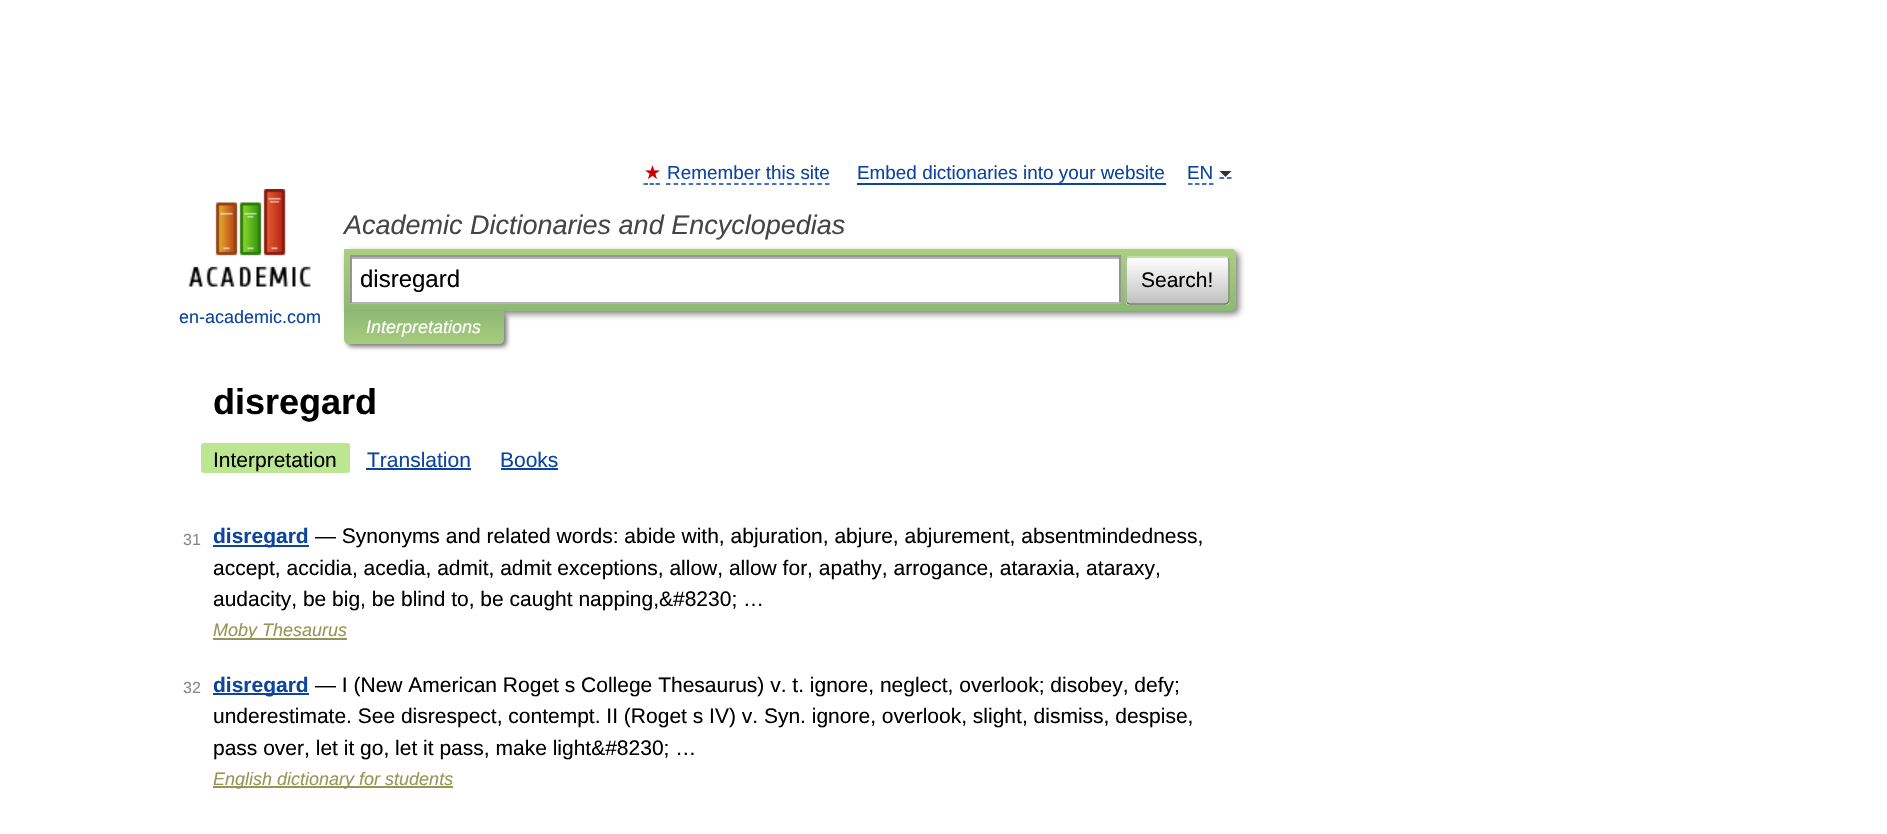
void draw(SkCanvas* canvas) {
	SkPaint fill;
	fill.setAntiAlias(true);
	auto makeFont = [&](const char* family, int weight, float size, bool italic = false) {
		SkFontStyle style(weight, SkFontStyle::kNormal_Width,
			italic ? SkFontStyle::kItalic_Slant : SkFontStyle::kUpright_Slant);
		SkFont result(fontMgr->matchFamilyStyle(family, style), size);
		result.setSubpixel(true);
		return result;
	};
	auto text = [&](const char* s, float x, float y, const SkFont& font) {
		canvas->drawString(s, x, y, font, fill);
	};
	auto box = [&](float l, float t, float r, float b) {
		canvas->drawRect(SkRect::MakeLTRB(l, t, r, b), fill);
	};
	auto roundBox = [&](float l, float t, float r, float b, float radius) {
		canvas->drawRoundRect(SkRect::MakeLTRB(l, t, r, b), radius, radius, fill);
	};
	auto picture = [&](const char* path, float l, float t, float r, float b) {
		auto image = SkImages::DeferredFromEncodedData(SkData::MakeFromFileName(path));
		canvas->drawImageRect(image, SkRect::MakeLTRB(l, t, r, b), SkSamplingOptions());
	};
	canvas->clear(0xFFFFFFFF);
	fill.setStyle(SkPaint::kStroke_Style);
	fill.setStrokeWidth(1.5f);
	fill.setColor(0xFF0044AA);
	canvas->drawPath(SkPathBuilder().moveTo(643.5f, 184).lineTo(648, 184).moveTo(649.5f, 184).lineTo(654, 184).moveTo(655.5f, 184).lineTo(660, 184).detach(), fill);
	fill.setPathEffect(SkDashPathEffect::Make({{4.5f, 3.07f}}, 0));
	canvas->drawPath(SkPathBuilder().moveTo(666, 184).lineTo(829.5f, 184).detach(), fill);
	fill.setPathEffect(nullptr);
	fill.setStyle(SkPaint::kFill_Style);
	fill.setColor(0xFF0D44A0);
	box(857, 183, 1166, 185);
	fill.setStyle(SkPaint::kStroke_Style);
	fill.setColor(0xFF0044AA);
	fill.setPathEffect(SkDashPathEffect::Make({{4.5f, 2.5f}}, 0));
	canvas->drawPath(SkPathBuilder().moveTo(1188, 184).lineTo(1213.5f, 184).detach(), fill);
	fill.setPathEffect(nullptr);
	canvas->drawPath(SkPathBuilder().moveTo(1219.5f, 178).lineTo(1224, 178).moveTo(1227, 178).lineTo(1231.5f, 178).detach(), fill);
	fill.setStyle(SkPaint::kFill_Style);
	fill.setColor(0xFF333333);
	canvas->drawPath(SkPathBuilder().moveTo(1219.5f, 171).lineTo(1231.5f, 171).lineTo(1225.5f, 177).close().detach(), fill);
	fill.setColor(0x80000000);
	fill.setMaskFilter(SkMaskFilter::MakeBlur(kNormal_SkBlurStyle, 3));
	canvas->drawRoundRect(SkRect::MakeLTRB(347, 252, 1239, 314), 5, 5, fill);
	fill.setMaskFilter(nullptr);
	{
		const SkColor colors[] = {0xFFABCF7E, 0xFF8EB874};
		const float stops[] = {0, 1};
		const SkPoint ends[] = {{790, 249}, {790, 311}};
		fill.setShader(SkGradientShader::MakeLinear(ends, colors, stops, 2, SkTileMode::kClamp));
		fill.setAlpha(255);
	}
	canvas->drawPath(SkPathBuilder().moveTo(344, 249).lineTo(1231, 249).cubicTo(1234, 249, 1236, 251, 1236, 254).lineTo(1236, 306).cubicTo(1236, 309, 1234, 311, 1231, 311).lineTo(344, 311).close().detach(), fill);
	fill.setShader(nullptr);
	fill.setColor(0xFFFFFFFF);
	box(352, 259, 1119, 302);
	fill.setColor(0xFFB3B3B3);
	box(351, 257, 1119, 259);
	fill.setColor(0xFF949494);
	box(350, 255, 1121, 257);
	box(1119, 255, 1121, 303);
	fill.setColor(0xFFB4B4B4);
	box(350, 302, 1121, 304);
	fill.setColor(0xFF949494);
	box(350, 255, 352, 303);
	canvas->save();
	canvas->clipPath(SkPathBuilder().moveTo(1130, 257).lineTo(1225, 257).cubicTo(1228, 257, 1230, 259, 1230, 262).lineTo(1230, 300).cubicTo(1230, 303, 1228, 305, 1225, 305).lineTo(1130, 305).cubicTo(1127, 305, 1125, 303, 1125, 300).lineTo(1125, 262).cubicTo(1125, 259, 1127, 257, 1130, 257).close().detach(), true);
	{
		const SkColor colors[] = {0xFFFFFFFF, 0xFFC1C1C1};
		const float stops[] = {0, 1};
		const SkPoint ends[] = {{1178, 258}, {1178, 303}};
		fill.setShader(SkGradientShader::MakeLinear(ends, colors, stops, 2, SkTileMode::kClamp));
		fill.setAlpha(255);
	}
	box(1125, 258, 1230, 303);
	{
		const SkColor colors[] = {0xFFFFFFFF, 0xFFC1C1C1};
		const float stops[] = {0, 1};
		const SkPoint ends[] = {{1178, 303}, {1178, 348}};
		fill.setShader(SkGradientShader::MakeLinear(ends, colors, stops, 2, SkTileMode::kClamp));
		fill.setAlpha(255);
	}
	box(1125, 303, 1230, 305);
	canvas->restore();
	fill.setStyle(SkPaint::kStroke_Style);
	fill.setShader(nullptr);
	fill.setColor(0xFFD1E4BC);
	canvas->drawPath(SkPathBuilder().moveTo(1127, 258.5f).cubicTo(1127.5f, 257.5f, 1128.5f, 257, 1129.5f, 257).lineTo(1225.5f, 257).cubicTo(1226.5f, 257, 1227.5f, 257.5f, 1228, 258.5f).detach(), fill);
	fill.setColor(0xFF7A8E69);
	canvas->drawPath(SkPathBuilder().moveTo(1228, 258.5f).cubicTo(1229, 259, 1229, 260, 1229, 261).lineTo(1229, 300).cubicTo(1229, 301, 1229, 302, 1228, 302.5f).detach(), fill);
	fill.setColor(0xFF5D7250);
	canvas->drawPath(SkPathBuilder().moveTo(1228, 302.5f).cubicTo(1227.5f, 303.5f, 1226.5f, 304, 1225.5f, 304).lineTo(1129.5f, 304).cubicTo(1128.5f, 304, 1127.5f, 303.5f, 1127, 302.5f).detach(), fill);
	fill.setColor(0xFF9AAE89);
	canvas->drawPath(SkPathBuilder().moveTo(1127, 302.5f).cubicTo(1126, 302, 1126, 301, 1126, 300).lineTo(1126, 261).cubicTo(1126, 260, 1126, 259, 1127, 258.5f).detach(), fill);
	picture("image0.png", 188, 189, 311, 287);
	fill.setStyle(SkPaint::kFill_Style);
	fill.setColor(0x80000000);
	fill.setMaskFilter(SkMaskFilter::MakeBlur(kNormal_SkBlurStyle, 2));
	canvas->drawRoundRect(SkRect::MakeLTRB(347, 314, 507, 347), 5, 5, fill);
	fill.setMaskFilter(nullptr);
	{
		const SkColor colors[] = {0xFF8FB875, 0xFFA7CC7D};
		const float stops[] = {0, 1};
		const SkPoint ends[] = {{424, 311}, {424, 344}};
		fill.setShader(SkGradientShader::MakeLinear(ends, colors, stops, 2, SkTileMode::kClamp));
		fill.setAlpha(255);
	}
	canvas->drawPath(SkPathBuilder().moveTo(344, 311).lineTo(504, 311).lineTo(504, 339).cubicTo(504, 342, 502, 344, 499, 344).lineTo(349, 344).cubicTo(346, 344, 344, 342, 344, 339).close().detach(), fill);
	fill.setShader(nullptr);
	fill.setColor(0xFFBDE693);
	roundBox(201, 443, 350, 473, 3);
	fill.setColor(0xFF0D44A0);
	box(366, 468, 471, 470);
	box(501, 468, 558, 470);
	box(213, 545, 309, 547);
	fill.setColor(0xFF939756);
	box(213, 638, 347, 640);
	fill.setColor(0xFF0D44A0);
	box(213, 693, 309, 695);
	fill.setColor(0xFF939756);
	box(213, 786, 453, 788);
	auto font1 = makeFont("DejaVu Sans", 400, 18.9f);
	fill.setColor(0xFFCC0000);
	text("★", 644, 179, font1);
	auto font2 = makeFont("Liberation Sans", 400, 18.9f);
	fill.setColor(0xFF0D44A0);
	text("Remember this site", 667, 179, font2);
	text("Embed dictionaries into your website", 857, 179, font2);
	text("EN", 1187, 179, font2);
	auto font3 = makeFont("Liberation Sans", 400, 27, true);
	fill.setColor(0xFF454545);
	text("Academic Dictionaries and Encyclopedias", 344, 234, font3);
	auto font4 = makeFont("Liberation Sans", 400, 24);
	fill.setColor(0xFF000000);
	text("disregard", 360, 287, font4);
	auto font5 = makeFont("Liberation Sans", 400, 21);
	text("Search!", 1141, 287, font5);
	auto font6 = makeFont("Liberation Sans", 400, 18);
	fill.setColor(0xFF0D44A0);
	text("en-academic.com", 179, 323, font6);
	auto font7 = makeFont("Liberation Sans", 400, 18, true);
	fill.setColor(0xFFFFFFFF);
	text("Interpretations", 366, 333, font7);
	auto font8 = makeFont("Liberation Sans", 700, 36);
	fill.setColor(0xFF000000);
	text("disregard", 213, 414, font8);
	text("Interpretation", 213, 467, font5);
	fill.setColor(0xFF0D44A0);
	text("Translation", 367, 467, font5);
	text("Books", 500, 467, font5);
	auto font9 = makeFont("Liberation Sans", 400, 16);
	fill.setColor(0xFF898989);
	text("31", 183, 545, font9);
	auto font10 = makeFont("Liberation Sans", 700, 21);
	fill.setColor(0xFF0D44A0);
	text("disregard", 213, 543, font10);
	fill.setColor(0xFF000000);
	text("— Synonyms and related words: abide with, abjuration, abjure, abjurement, absentmindedness,", 315, 543, font5);
	text("accept, accidia, acedia, admit, admit exceptions, allow, allow for, apathy, arrogance, ataraxia, ataraxy,", 213, 575, font5);
	text("audacity, be big, be blind to, be caught napping,&#8230; …", 213, 606, font5);
	fill.setColor(0xFF939756);
	text("Moby Thesaurus", 213, 636, font7);
	fill.setColor(0xFF898989);
	text("32", 183, 693, font9);
	fill.setColor(0xFF0D44A0);
	text("disregard", 213, 692, font10);
	fill.setColor(0xFF000000);
	text("— I (New American Roget s College Thesaurus) v. t. ignore, neglect, overlook; disobey, defy;", 315, 692, font5);
	text("underestimate. See disrespect, contempt. II (Roget s IV) v. Syn. ignore, overlook, slight, dismiss, despise,", 213, 723, font5);
	text("pass over, let it go, let it pass, make light&#8230; …", 213, 755, font5);
	fill.setColor(0xFF939756);
	text("English dictionary for students", 213, 785, font7);
}
